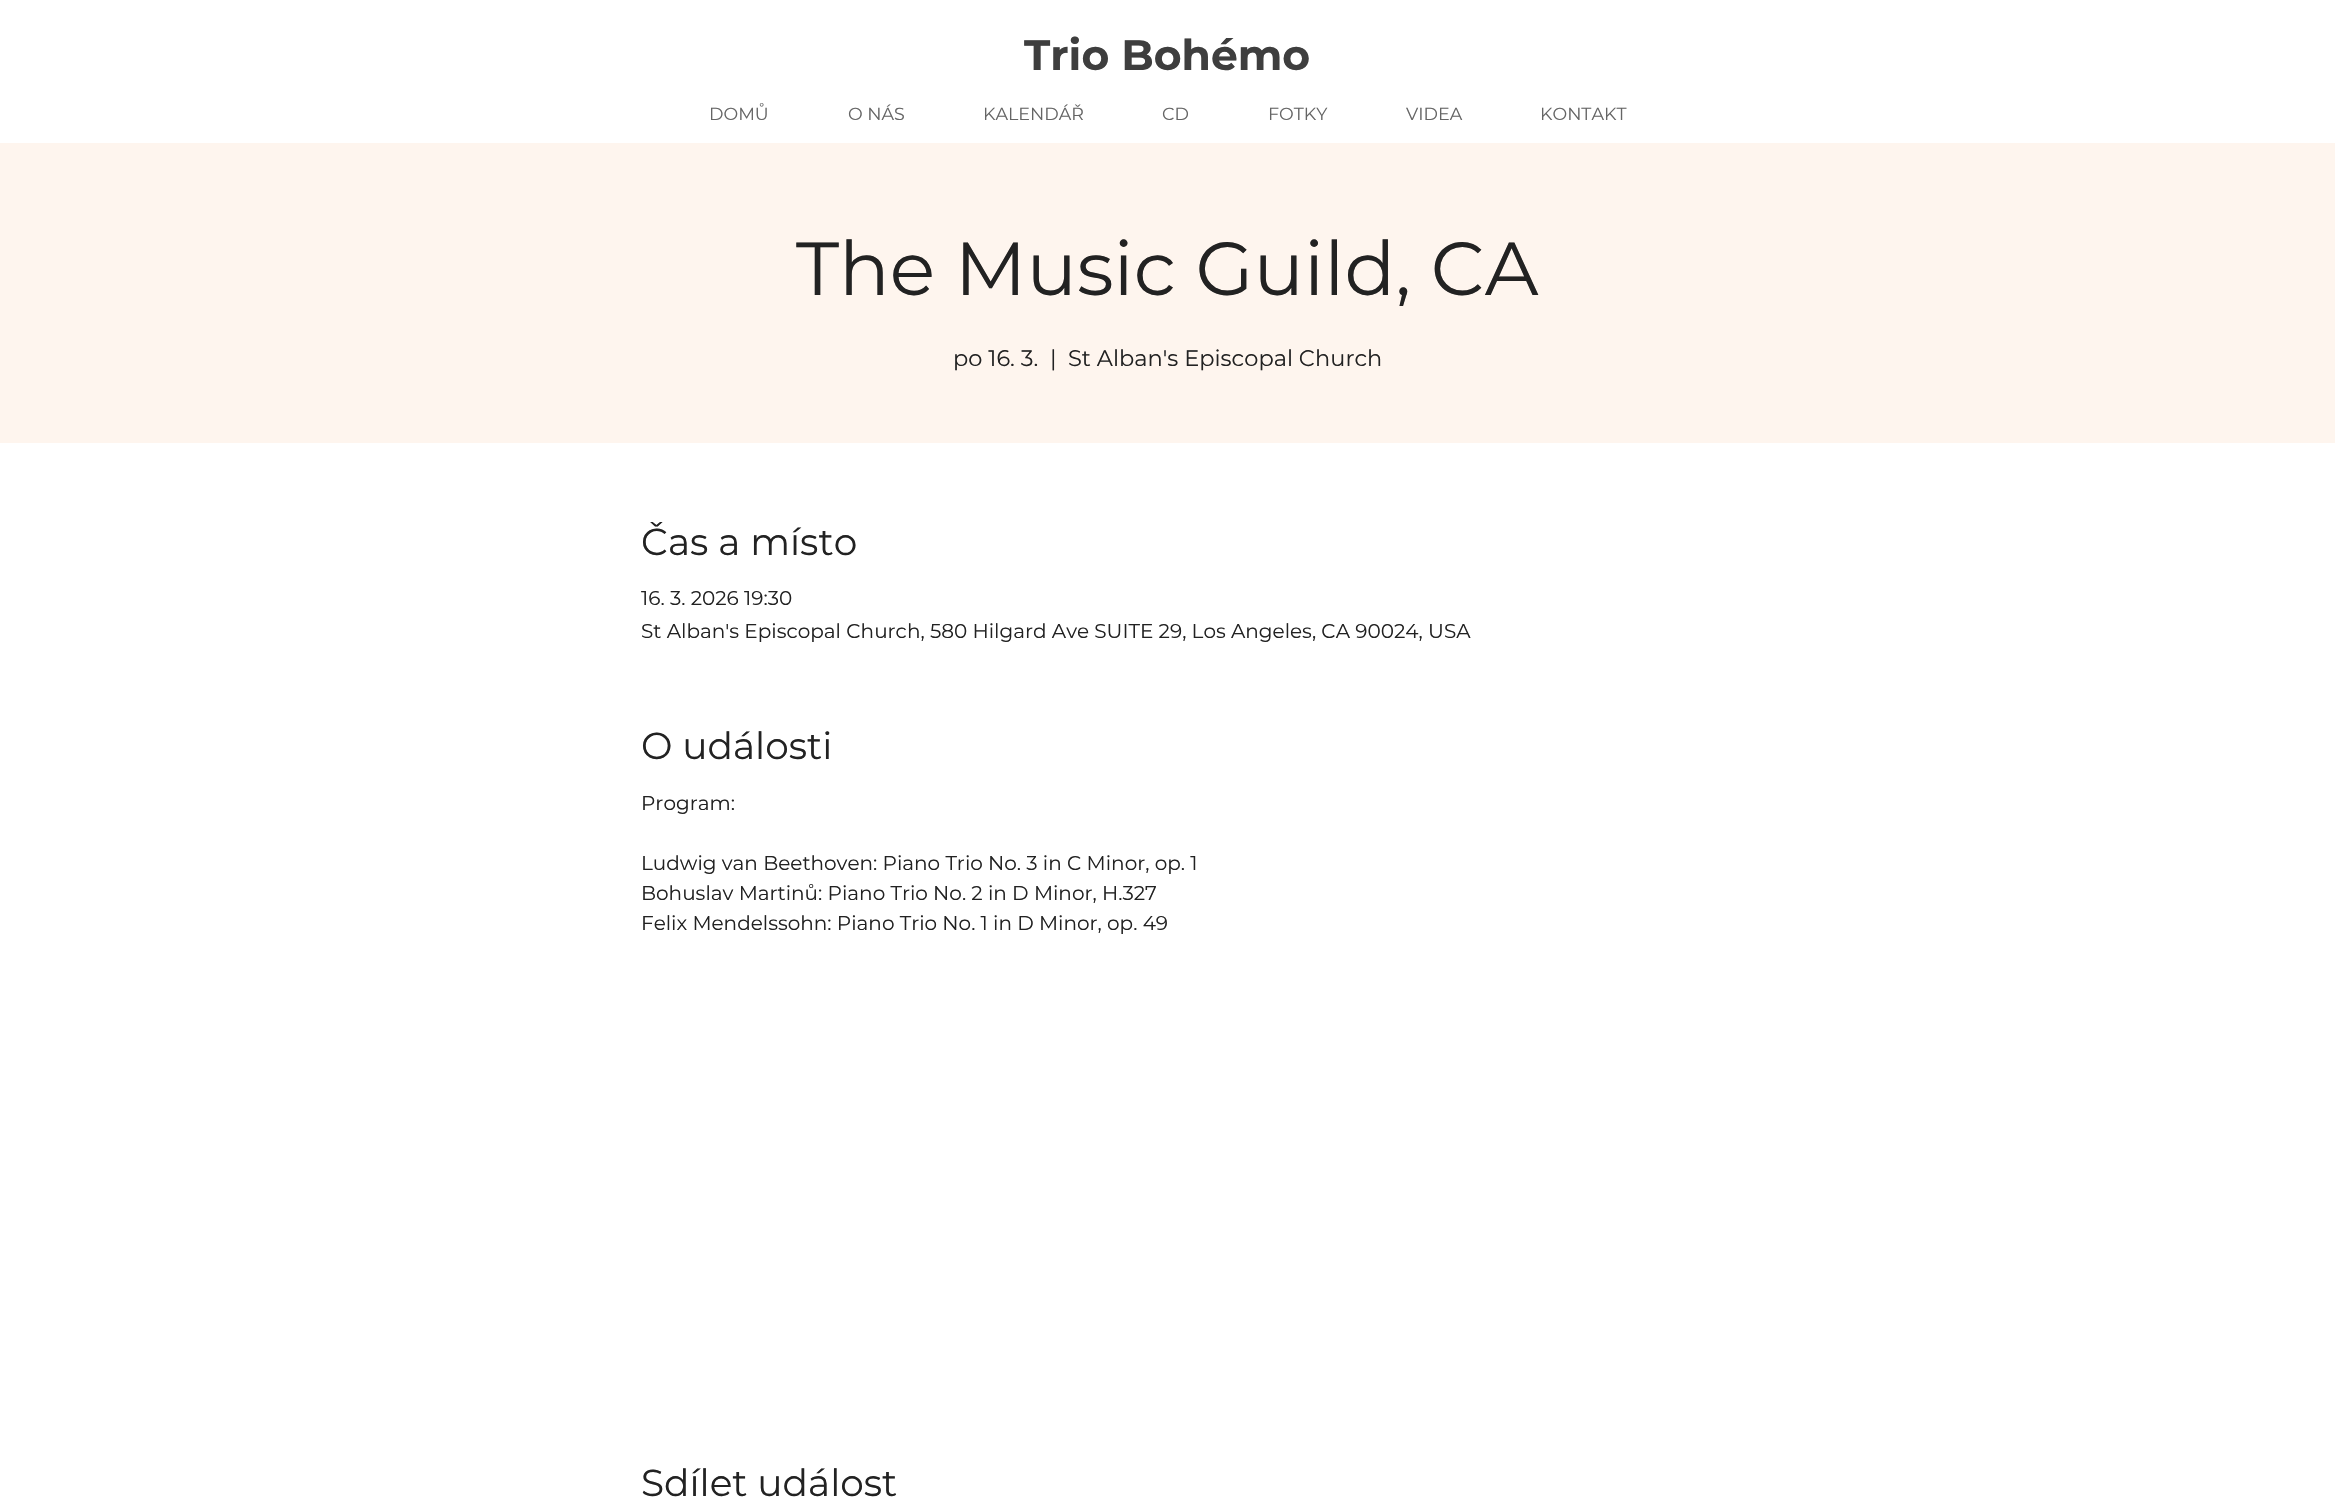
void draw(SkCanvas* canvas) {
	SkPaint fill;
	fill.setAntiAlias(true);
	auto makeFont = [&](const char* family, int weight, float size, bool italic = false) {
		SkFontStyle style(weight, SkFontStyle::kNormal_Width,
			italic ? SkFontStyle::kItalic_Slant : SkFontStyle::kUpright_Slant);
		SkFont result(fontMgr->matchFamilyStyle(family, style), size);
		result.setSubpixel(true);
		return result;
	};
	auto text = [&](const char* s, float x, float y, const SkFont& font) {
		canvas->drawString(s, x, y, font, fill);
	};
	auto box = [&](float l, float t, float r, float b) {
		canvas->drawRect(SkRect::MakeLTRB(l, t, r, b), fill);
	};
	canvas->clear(0xFFFFFFFF);
	fill.setColor(0xFFFEF5EE);
	box(0, 143, 2335, 443);
	auto font1 = makeFont("Montserrat", 700, 42.5f);
	fill.setColor(0xFF3E3E3E);
	text("Trio Bohémo", 1024, 70, font1);
	auto font2 = makeFont("Montserrat", 400, 17.5f);
	fill.setColor(0xFF656565);
	text("DOMŮ", 709, 120, font2);
	text("O NÁS", 848, 120, font2);
	text("KALENDÁŘ", 983, 120, font2);
	text("CD", 1162, 120, font2);
	text("FOTKY", 1268, 120, font2);
	text("VIDEA", 1406, 120, font2);
	text("KONTAKT", 1540, 120, font2);
	auto font3 = makeFont("Montserrat", 400, 75);
	fill.setColor(0xFF222222);
	text("The Music Guild, CA", 796, 295, font3);
	auto font4 = makeFont("Montserrat", 400, 22.5f);
	text("po 16. 3.", 953, 366, font4);
	text("|", 1050, 366, font4);
	text("St Alban's Episcopal Church", 1068, 366, font4);
	auto font5 = makeFont("Montserrat", 400, 37.5f);
	text("Čas a místo", 641, 555, font5);
	auto font6 = makeFont("Montserrat", 400, 20);
	text("16. 3. 2026 19:30", 641, 605, font6);
	text("St Alban's Episcopal Church, 580 Hilgard Ave SUITE 29, Los Angeles, CA 90024, USA", 641, 638, font6);
	text("O události", 641, 759, font5);
	text("Program:", 641, 810, font6);
	text("Ludwig van Beethoven: Piano Trio No. 3 in C Minor, op. 1", 641, 870, font6);
	text("Bohuslav Martinů: Piano Trio No. 2 in D Minor, H.327", 641, 900, font6);
	text("Felix Mendelssohn: Piano Trio No. 1 in D Minor, op. 49", 641, 930, font6);
	text("Sdílet událost", 641, 1496, font5);
}
